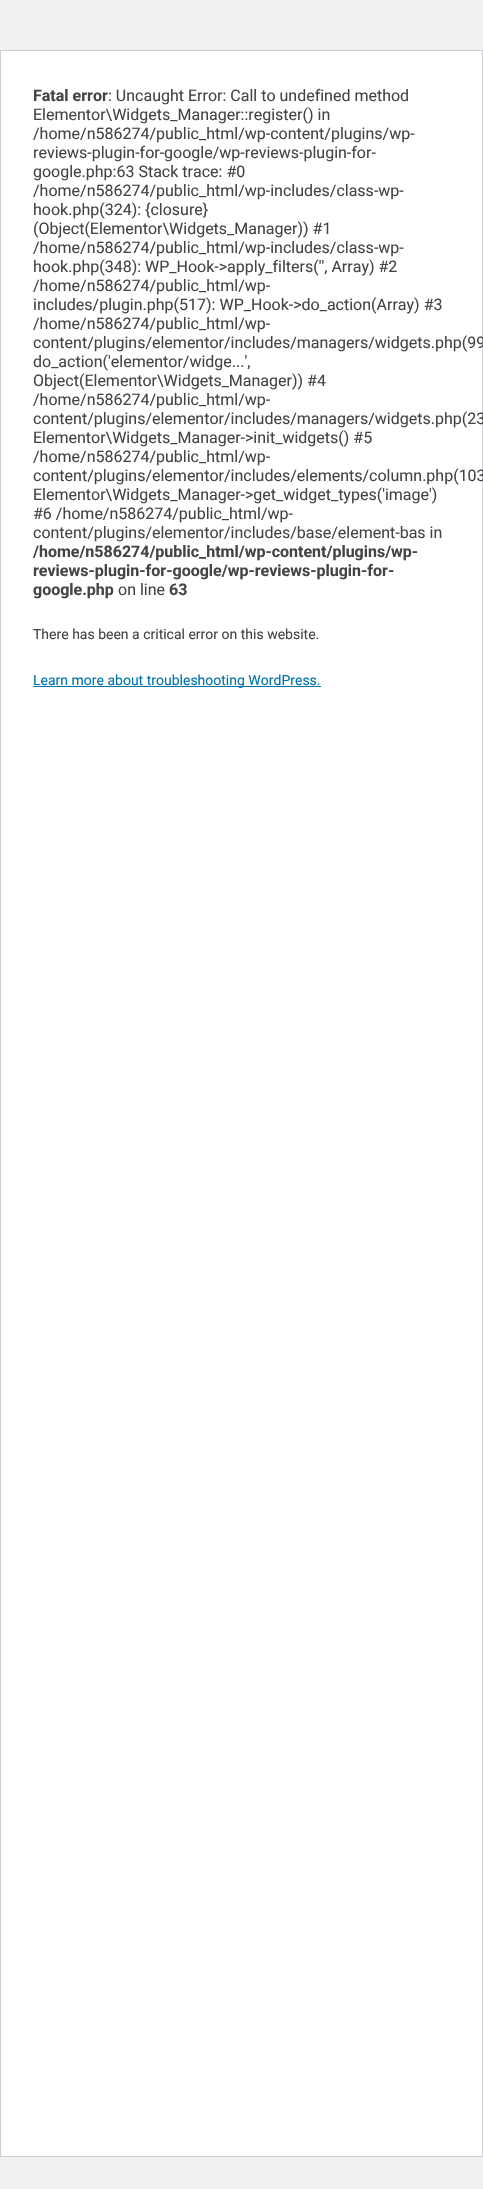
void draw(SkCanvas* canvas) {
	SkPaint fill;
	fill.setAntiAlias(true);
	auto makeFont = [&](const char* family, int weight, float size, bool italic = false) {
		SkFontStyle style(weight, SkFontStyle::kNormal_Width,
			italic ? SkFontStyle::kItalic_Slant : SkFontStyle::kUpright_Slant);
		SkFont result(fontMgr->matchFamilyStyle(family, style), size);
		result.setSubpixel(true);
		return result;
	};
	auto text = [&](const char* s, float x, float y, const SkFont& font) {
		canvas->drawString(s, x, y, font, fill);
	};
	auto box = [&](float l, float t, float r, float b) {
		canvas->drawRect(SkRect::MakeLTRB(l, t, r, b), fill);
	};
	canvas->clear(0xFFF1F1F1);
	fill.setColor(0xFFFFFFFF);
	canvas->drawRect(SkRect::MakeLTRB(0.5f, 50.5f, 482.5f, 2156.5f), fill);
	fill.setStyle(SkPaint::kStroke_Style);
	fill.setStrokeWidth(1);
	fill.setColor(0xFFCCD0D4);
	canvas->drawRect(SkRect::MakeLTRB(0.5f, 50.5f, 482.5f, 2156.5f), fill);
	fill.setStyle(SkPaint::kFill_Style);
	fill.setColor(0xFF0073AA);
	box(33, 686, 321, 687);
	auto font1 = makeFont("Roboto", 700, 16);
	fill.setColor(0xFF444444);
	text("Fatal error", 33, 101, font1);
	auto font2 = makeFont("Roboto", 400, 16);
	text(": Uncaught Error: Call to undefined method", 108, 101, font2);
	text("Elementor\\Widgets_Manager::register() in", 33, 120, font2);
	text("/home/n586274/public_html/wp-content/plugins/wp-", 33, 139, font2);
	text("reviews-plugin-for-google/wp-reviews-plugin-for-", 33, 158, font2);
	text("google.php:63 Stack trace: #0", 33, 177, font2);
	text("/home/n586274/public_html/wp-includes/class-wp-", 33, 196, font2);
	text("hook.php(324): {closure}", 33, 215, font2);
	text("(Object(Elementor\\Widgets_Manager)) #1", 33, 234, font2);
	text("/home/n586274/public_html/wp-includes/class-wp-", 33, 253, font2);
	text("hook.php(348): WP_Hook->apply_filters('', Array) #2", 33, 272, font2);
	text("/home/n586274/public_html/wp-", 33, 291, font2);
	text("includes/plugin.php(517): WP_Hook->do_action(Array) #3", 33, 310, font2);
	text("/home/n586274/public_html/wp-", 33, 329, font2);
	text("content/plugins/elementor/includes/managers/widgets.php(99", 33, 348, font2);
	text("do_action('elementor/widge...',", 33, 367, font2);
	text("Object(Elementor\\Widgets_Manager)) #4", 33, 386, font2);
	text("/home/n586274/public_html/wp-", 33, 405, font2);
	text("content/plugins/elementor/includes/managers/widgets.php(23", 33, 424, font2);
	text("Elementor\\Widgets_Manager->init_widgets() #5", 33, 443, font2);
	text("/home/n586274/public_html/wp-", 33, 462, font2);
	text("content/plugins/elementor/includes/elements/column.php(103", 33, 481, font2);
	text("Elementor\\Widgets_Manager->get_widget_types('image')", 33, 500, font2);
	text("#6 /home/n586274/public_html/wp-", 33, 519, font2);
	text("content/plugins/elementor/includes/base/element-bas in", 33, 538, font2);
	text("/home/n586274/public_html/wp-content/plugins/wp-", 33, 557, font1);
	text("reviews-plugin-for-google/wp-reviews-plugin-for-", 33, 576, font1);
	text("google.php", 33, 595, font1);
	text("on line", 118, 595, font2);
	text("63", 169, 595, font1);
	auto font3 = makeFont("Roboto", 400, 14);
	text("There has been a critical error on this website.", 33, 639, font3);
	fill.setColor(0xFF0073AA);
	text("Learn more about troubleshooting WordPress.", 33, 685, font3);
}
